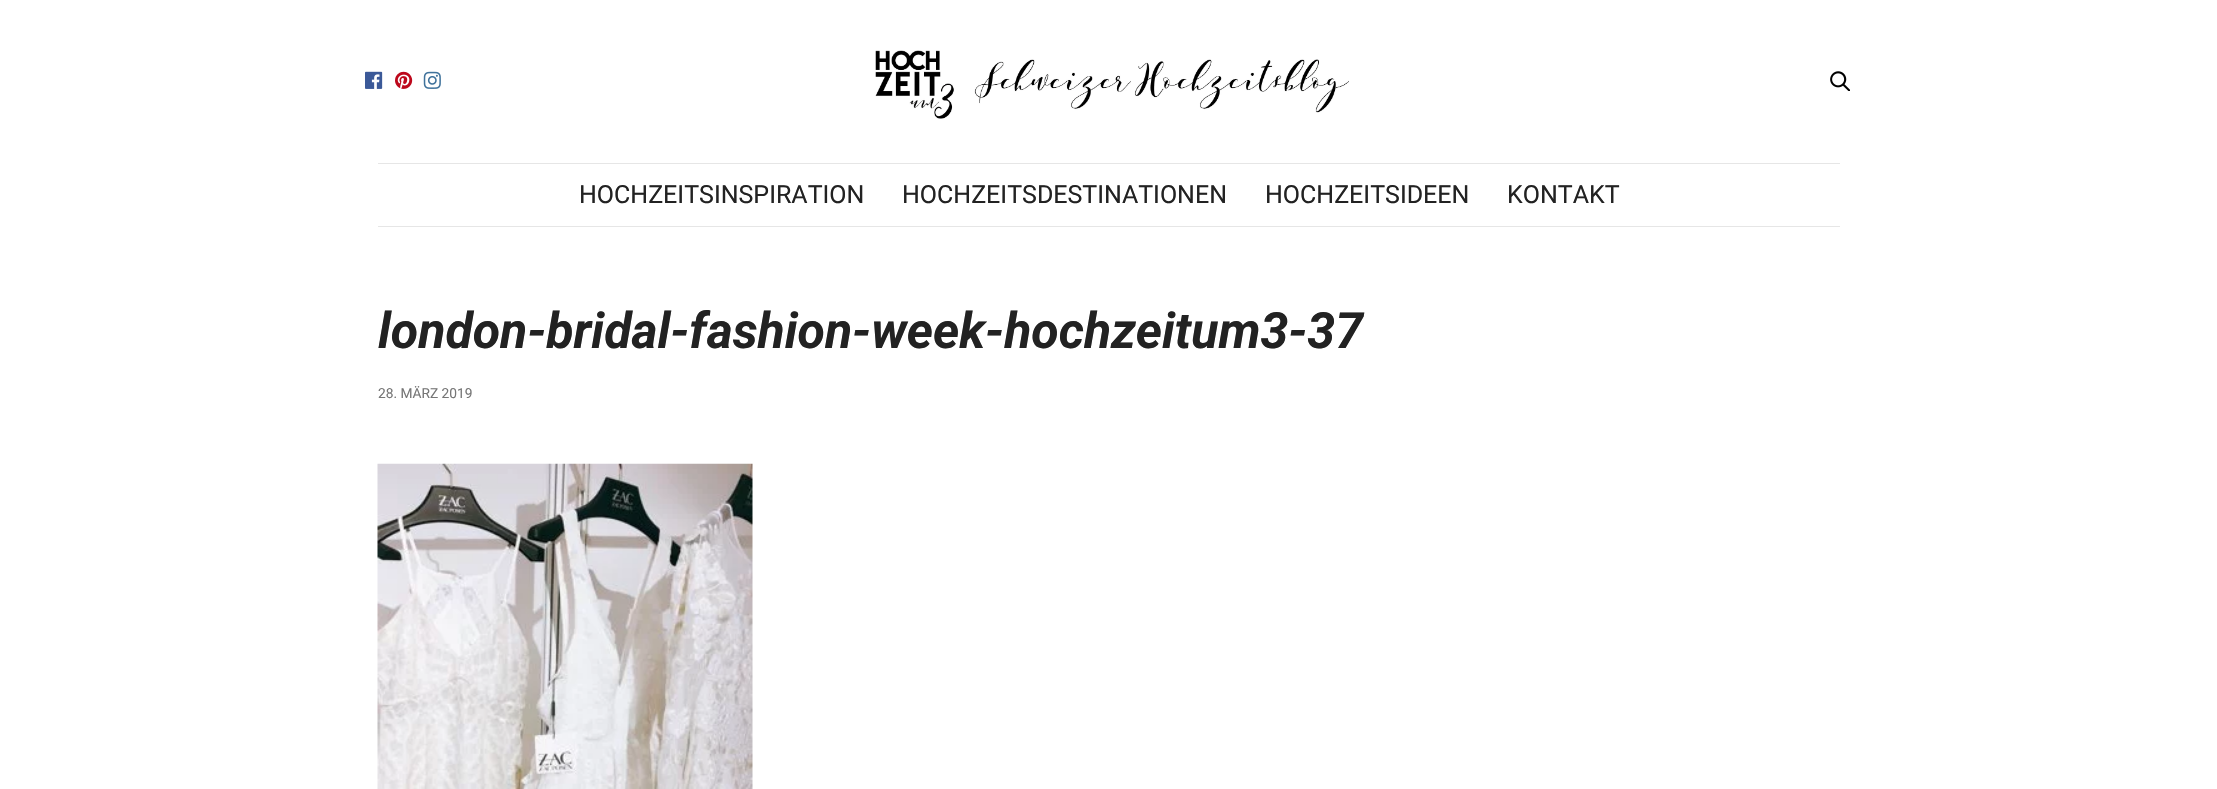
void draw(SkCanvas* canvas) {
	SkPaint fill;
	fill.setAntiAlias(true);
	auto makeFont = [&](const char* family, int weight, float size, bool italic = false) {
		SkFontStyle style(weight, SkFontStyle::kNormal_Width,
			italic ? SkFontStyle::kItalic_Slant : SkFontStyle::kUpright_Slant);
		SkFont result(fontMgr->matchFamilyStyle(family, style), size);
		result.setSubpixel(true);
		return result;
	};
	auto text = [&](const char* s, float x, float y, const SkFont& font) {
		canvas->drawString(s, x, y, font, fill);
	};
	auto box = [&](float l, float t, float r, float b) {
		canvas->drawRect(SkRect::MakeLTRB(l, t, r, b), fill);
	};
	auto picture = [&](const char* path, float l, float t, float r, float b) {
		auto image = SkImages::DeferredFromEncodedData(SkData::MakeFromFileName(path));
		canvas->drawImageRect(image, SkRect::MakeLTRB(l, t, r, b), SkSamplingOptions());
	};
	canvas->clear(0xFFFFFFFF);
	fill.setColor(0xFFE6E6E6);
	box(378, 163, 1840, 164);
	picture("image0.png", 365, 71, 383, 89);
	picture("image1.png", 395, 71, 413, 89);
	picture("image2.png", 423, 71, 441, 89);
	picture("image3.png", 875, 50, 1349, 119);
	picture("image4.png", 1830, 71, 1850, 91);
	box(378, 226, 1840, 227);
	picture("image5.png", 377, 463, 753, 789);
	auto font1 = makeFont("Roboto", 400, 25);
	fill.setColor(0xFF222222);
	text("HOCHZEITSINSPIRATION", 579, 203, font1);
	text("HOCHZEITSDESTINATIONEN", 902, 203, font1);
	text("HOCHZEITSIDEEN", 1265, 203, font1);
	text("KONTAKT", 1507, 203, font1);
	auto font2 = makeFont("Roboto", 700, 50, true);
	text("london-bridal-fashion-week-hochzeitum3-37", 378, 348, font2);
	auto font3 = makeFont("Roboto", 400, 13.75f);
	fill.setColor(0xFF767676);
	text("28. MÄRZ 2019", 378, 398, font3);
}
